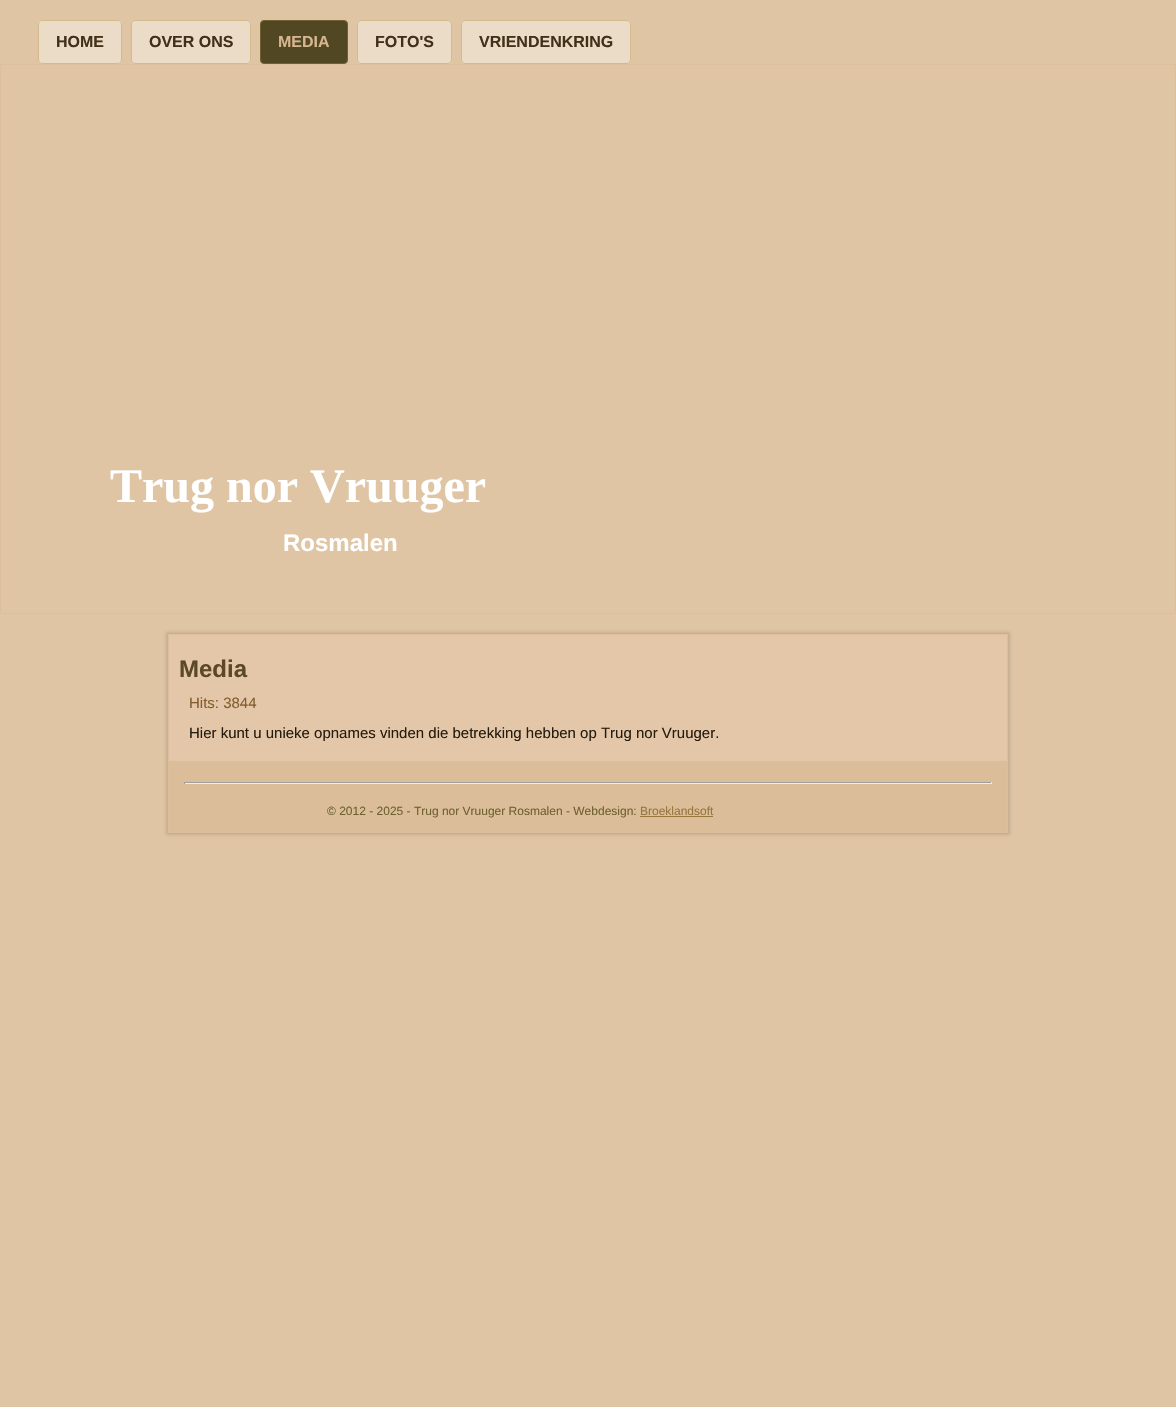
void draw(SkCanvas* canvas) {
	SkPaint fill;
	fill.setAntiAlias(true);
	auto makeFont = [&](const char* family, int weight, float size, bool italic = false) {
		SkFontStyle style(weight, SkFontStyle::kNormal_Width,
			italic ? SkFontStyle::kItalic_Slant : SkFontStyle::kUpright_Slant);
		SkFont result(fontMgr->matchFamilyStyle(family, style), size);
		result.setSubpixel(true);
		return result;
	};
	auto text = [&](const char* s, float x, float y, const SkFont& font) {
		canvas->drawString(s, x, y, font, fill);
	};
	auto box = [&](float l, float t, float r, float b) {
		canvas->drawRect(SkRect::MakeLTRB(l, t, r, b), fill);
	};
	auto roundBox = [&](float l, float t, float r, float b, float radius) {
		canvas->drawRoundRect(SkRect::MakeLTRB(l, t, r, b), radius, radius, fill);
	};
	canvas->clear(0xFFDFC5A4);
	fill.setColor(0xFFEBDCC7);
	roundBox(38, 20, 122, 64, 4);
	fill.setStyle(SkPaint::kStroke_Style);
	fill.setStrokeWidth(1);
	fill.setColor(0x80BB9754);
	canvas->drawRoundRect(SkRect::MakeLTRB(38.5f, 20.5f, 121.5f, 63.5f), 3.5f, 3.5f, fill);
	fill.setStyle(SkPaint::kFill_Style);
	fill.setColor(0xFFEBDCC7);
	roundBox(131, 20, 251, 64, 4);
	fill.setStyle(SkPaint::kStroke_Style);
	fill.setColor(0x80BB9754);
	canvas->drawRoundRect(SkRect::MakeLTRB(131.5f, 20.5f, 250.5f, 63.5f), 3.5f, 3.5f, fill);
	fill.setStyle(SkPaint::kFill_Style);
	fill.setColor(0xFF524723);
	canvas->drawRoundRect(SkRect::MakeLTRB(260.5f, 20.5f, 347.5f, 63.5f), 3.5f, 3.5f, fill);
	fill.setStyle(SkPaint::kStroke_Style);
	fill.setColor(0xFF6F602F);
	canvas->drawRoundRect(SkRect::MakeLTRB(260.5f, 20.5f, 347.5f, 63.5f), 3.5f, 3.5f, fill);
	fill.setStyle(SkPaint::kFill_Style);
	fill.setColor(0xFFEBDCC7);
	roundBox(357, 20, 452, 64, 4);
	fill.setStyle(SkPaint::kStroke_Style);
	fill.setColor(0x80BB9754);
	canvas->drawRoundRect(SkRect::MakeLTRB(357.5f, 20.5f, 451.5f, 63.5f), 3.5f, 3.5f, fill);
	fill.setStyle(SkPaint::kFill_Style);
	fill.setColor(0xFFEBDCC7);
	roundBox(461, 20, 631, 64, 4);
	fill.setStyle(SkPaint::kStroke_Style);
	fill.setColor(0x80BB9754);
	canvas->drawRoundRect(SkRect::MakeLTRB(461.5f, 20.5f, 630.5f, 63.5f), 3.5f, 3.5f, fill);
	fill.setColor(0xFFDCBF9C);
	canvas->drawRect(SkRect::MakeLTRB(0.5f, 64.5f, 1175.5f, 613.5f), fill);
	fill.setStyle(SkPaint::kFill_Style);
	fill.setColor(0x1F000000);
	fill.setMaskFilter(SkMaskFilter::MakeBlur(kNormal_SkBlurStyle, 1.5f));
	canvas->drawRect(SkRect::MakeLTRB(166, 632, 1010, 835), fill);
	fill.setMaskFilter(nullptr);
	fill.setColor(0xFFE4C7A8);
	box(168, 634, 1008, 833);
	fill.setColor(0xFFDDBF9D);
	canvas->drawPath(SkPathBuilder().moveTo(168, 634).lineTo(1008, 634).lineTo(1007, 635).lineTo(169, 635).close().detach(), fill);
	fill.setColor(0xCCDBBD9A);
	canvas->drawPath(SkPathBuilder().moveTo(1008, 634).lineTo(1008, 833).lineTo(1007, 833).lineTo(1007, 635).close().detach(), fill);
	canvas->drawPath(SkPathBuilder().moveTo(168, 833).lineTo(168, 634).lineTo(169, 635).lineTo(169, 833).close().detach(), fill);
	fill.setColor(0xFFDBBD9A);
	box(169, 761, 1007, 833);
	fill.setColor(0xFF9F9F9F);
	box(184, 782, 992, 783);
	fill.setColor(0xFFEEEEEE);
	box(991, 782, 992, 784);
	box(184, 783, 992, 784);
	fill.setColor(0xFF9F9F9F);
	box(184, 782, 185, 784);
	fill.setColor(0xFF96763C);
	box(640, 816, 713, 817);
	auto font1 = makeFont("Liberation Sans", 700, 16);
	fill.setColor(0xFF433018);
	text("HOME", 56, 47, font1);
	text("OVER ONS", 149, 47, font1);
	fill.setColor(0xFFD6B68F);
	text("MEDIA", 278, 47, font1);
	fill.setColor(0xFF433018);
	text("FOTO'S", 375, 47, font1);
	text("VRIENDENKRING", 479, 47, font1);
	auto font2 = makeFont("Liberation Serif", 700, 48);
	fill.setColor(0xFFFFFFFF);
	text("Trug nor Vruuger", 110, 502, font2);
	auto font3 = makeFont("Liberation Sans", 700, 24);
	text("Rosmalen", 283, 551, font3);
	fill.setColor(0xFF5B4824);
	text("Media", 179, 677, font3);
	auto font4 = makeFont("Liberation Sans", 400, 15);
	fill.setColor(0xFF835D2F);
	text("Hits: 3844", 189, 708, font4);
	fill.setColor(0xFF251B0E);
	text("Hier kunt u unieke opnames vinden die betrekking hebben op Trug nor Vruuger.", 189, 738, font4);
	auto font5 = makeFont("Liberation Sans", 400, 12);
	fill.setColor(0xFF6F602F);
	text("© 2012 - 2025 - Trug nor Vruuger Rosmalen - Webdesign:", 327, 815, font5);
	fill.setColor(0xFF96763C);
	text("Broeklandsoft", 640, 815, font5);
}
